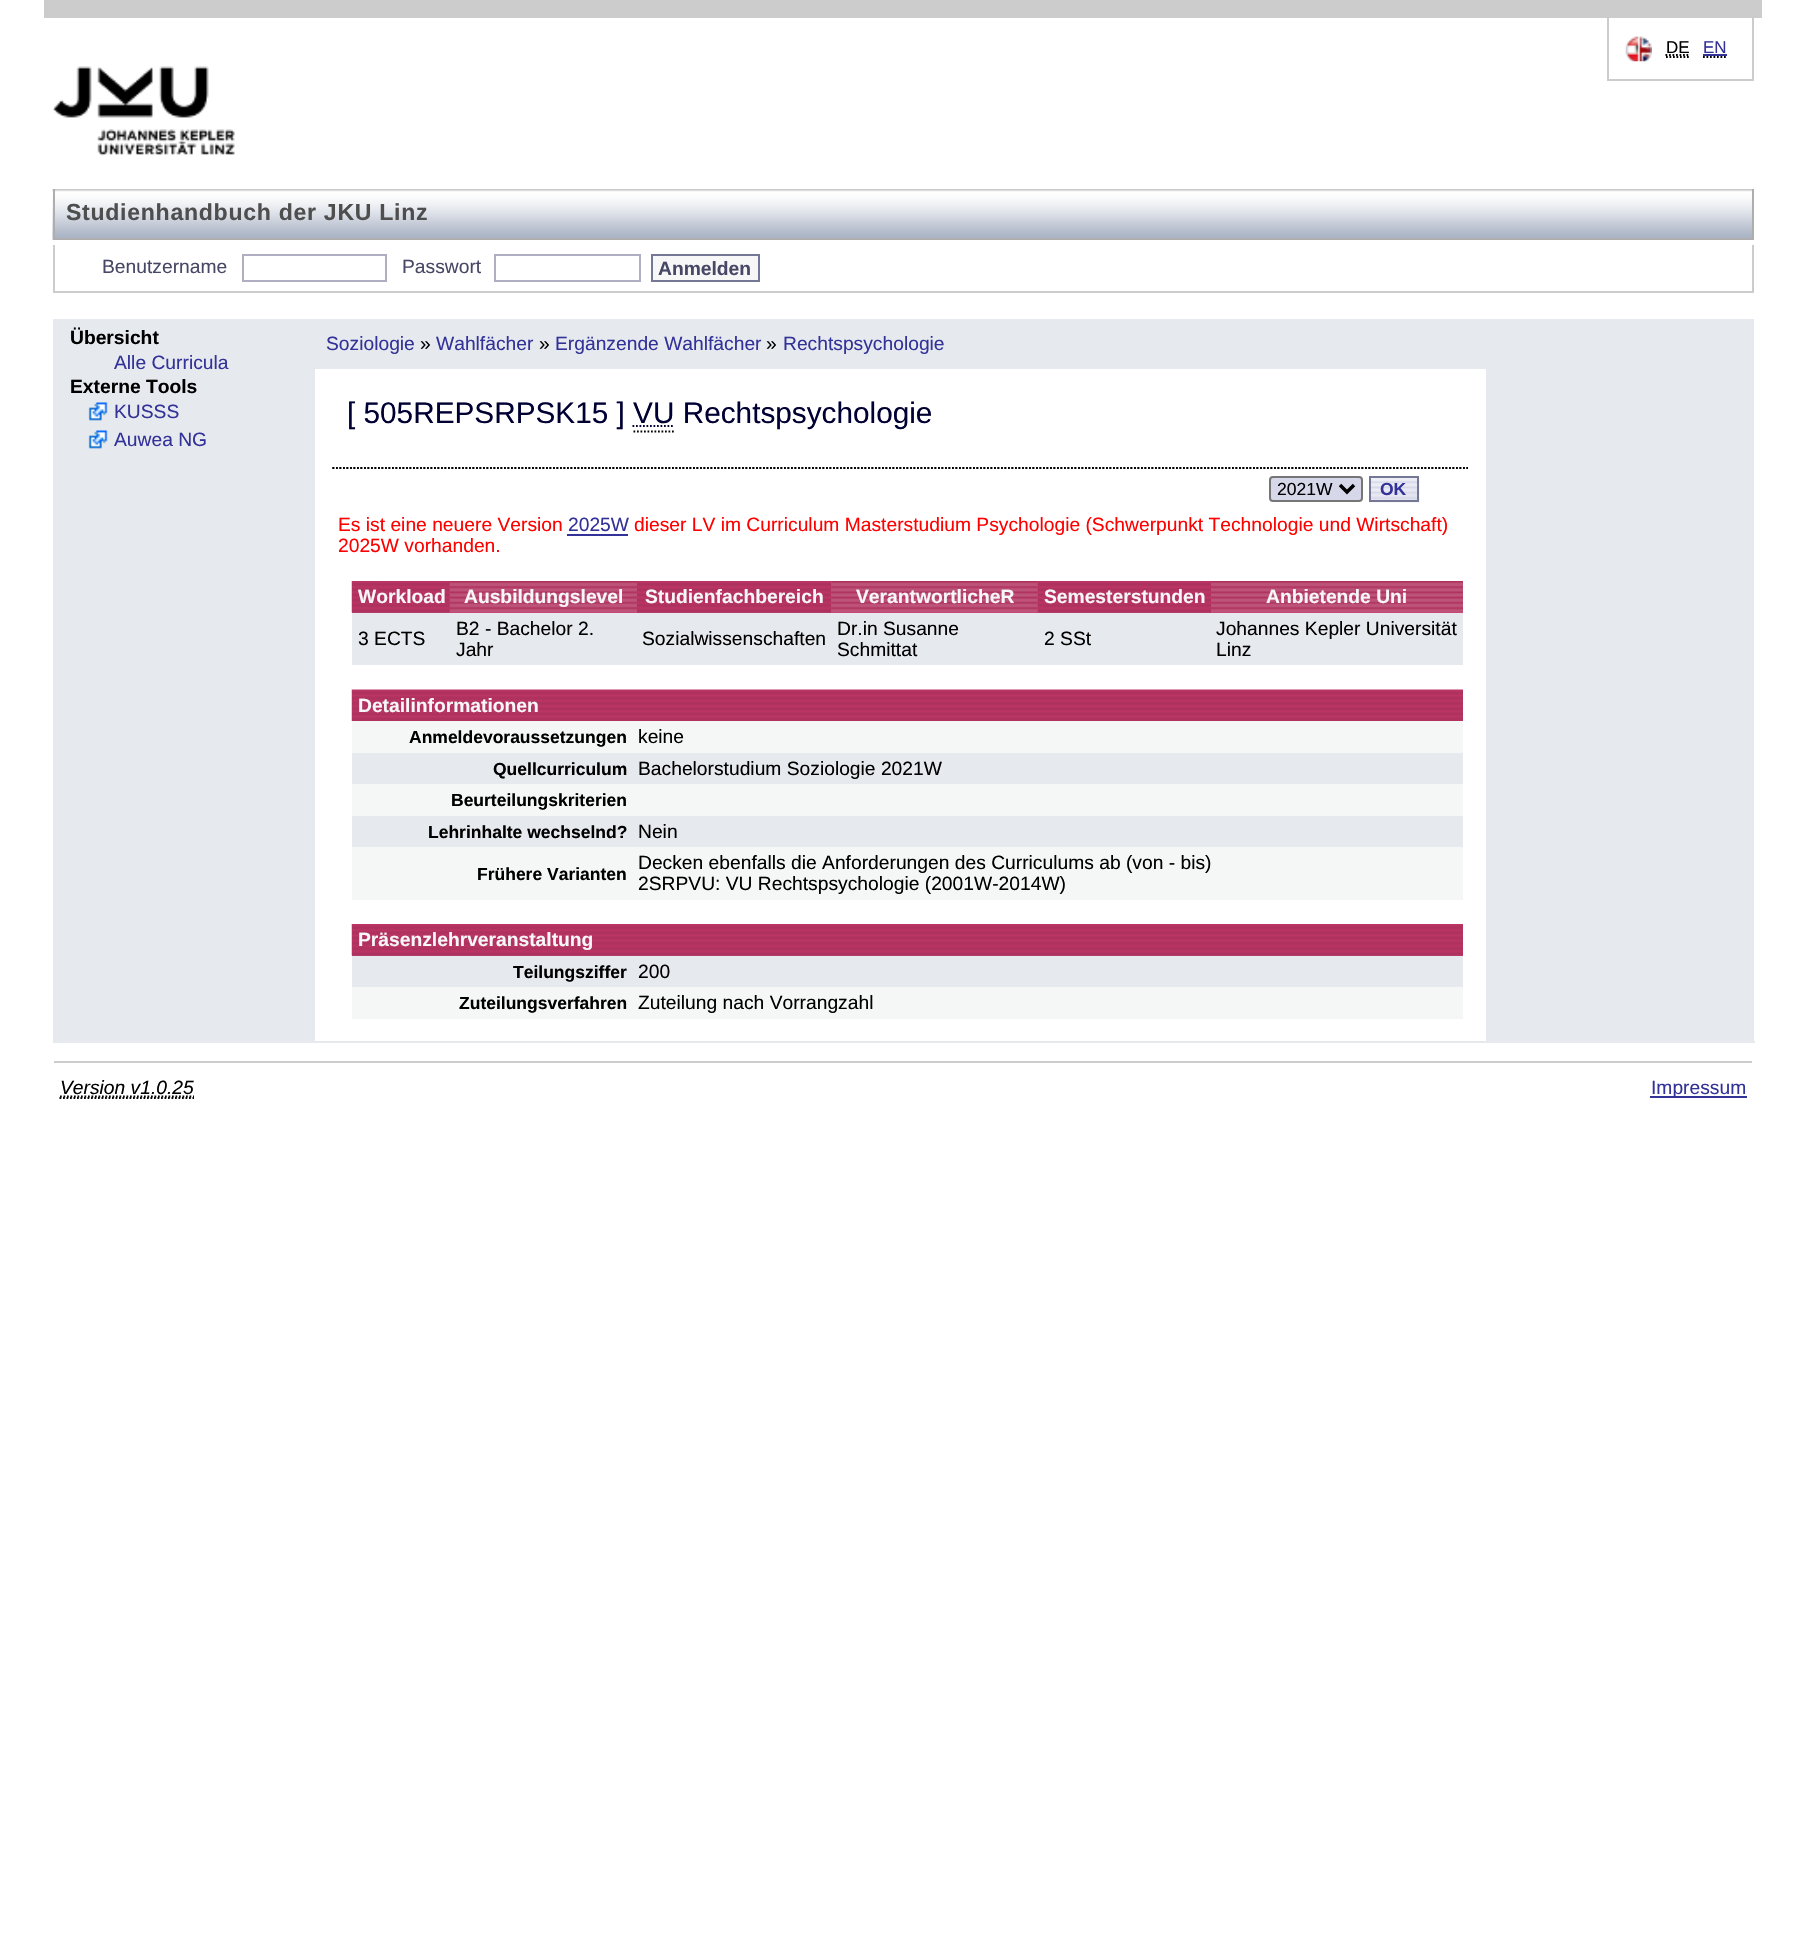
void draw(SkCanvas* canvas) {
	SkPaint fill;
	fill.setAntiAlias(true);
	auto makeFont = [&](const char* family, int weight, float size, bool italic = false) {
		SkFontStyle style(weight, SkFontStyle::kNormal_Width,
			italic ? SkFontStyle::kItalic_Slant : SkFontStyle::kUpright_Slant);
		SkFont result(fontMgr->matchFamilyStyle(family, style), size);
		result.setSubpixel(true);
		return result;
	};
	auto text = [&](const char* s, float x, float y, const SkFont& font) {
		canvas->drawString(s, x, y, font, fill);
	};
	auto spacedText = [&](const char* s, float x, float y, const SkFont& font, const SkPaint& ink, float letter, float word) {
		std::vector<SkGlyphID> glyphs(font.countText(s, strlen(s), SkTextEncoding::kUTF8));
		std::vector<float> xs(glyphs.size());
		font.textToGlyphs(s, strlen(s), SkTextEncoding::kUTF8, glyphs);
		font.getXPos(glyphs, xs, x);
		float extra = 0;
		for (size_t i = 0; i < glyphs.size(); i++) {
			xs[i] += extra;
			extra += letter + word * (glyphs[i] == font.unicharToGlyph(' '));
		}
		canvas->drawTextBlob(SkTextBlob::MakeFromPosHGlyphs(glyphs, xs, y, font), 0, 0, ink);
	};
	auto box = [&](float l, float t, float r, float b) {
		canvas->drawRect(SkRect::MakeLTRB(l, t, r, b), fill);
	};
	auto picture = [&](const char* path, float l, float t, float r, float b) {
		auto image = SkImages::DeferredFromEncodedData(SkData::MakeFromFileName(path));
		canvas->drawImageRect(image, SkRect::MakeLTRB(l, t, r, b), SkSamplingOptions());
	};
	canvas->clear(0xFFFFFFFF);
	fill.setColor(0xFFCCCCCC);
	box(44, 0, 1762, 18);
	box(1752, 18, 1754, 81);
	box(1607, 79, 1754, 81);
	box(1607, 18, 1609, 81);
	picture("image0.png", 1625, 36, 1652, 62);
	fill.setStyle(SkPaint::kStroke_Style);
	fill.setStrokeWidth(1.8f);
	fill.setColor(0xFF000000);
	fill.setPathEffect(SkDashPathEffect::Make({{1.75f, 1.75f}}, 0));
	canvas->drawPath(SkPathBuilder().moveTo(1666, 57).lineTo(1689, 57).moveTo(1665.5f, 55).lineTo(1689.5f, 55).detach(), fill);
	fill.setPathEffect(nullptr);
	fill.setPathEffect(SkDashPathEffect::Make({{1.75f, 1.75f}}, 0));
	canvas->drawPath(SkPathBuilder().moveTo(1703, 57).lineTo(1727, 57).detach(), fill);
	fill.setPathEffect(nullptr);
	fill.setStyle(SkPaint::kFill_Style);
	fill.setColor(0xFF333298);
	box(1703, 54, 1727, 56);
	picture("image1.png", 52, 66, 235, 156);
	picture("image2.png", 52, 189, 1752, 240);
	fill.setColor(0xFFAEAEAE);
	box(1752, 189, 1754, 240);
	box(53, 238, 1754, 240);
	box(53, 189, 55, 240);
	fill.setColor(0xFFCCCCCC);
	box(1752, 245, 1754, 292);
	box(53, 291, 1754, 293);
	box(53, 245, 55, 292);
	fill.setStyle(SkPaint::kStroke_Style);
	fill.setStrokeWidth(2);
	fill.setColor(0xFFB0AEC3);
	canvas->drawRect(SkRect::MakeLTRB(243, 255, 386, 281), fill);
	canvas->drawRect(SkRect::MakeLTRB(495, 255, 640, 281), fill);
	fill.setStyle(SkPaint::kFill_Style);
	fill.setColor(0xFFF7F7F7);
	canvas->drawRect(SkRect::MakeLTRB(652, 255, 759, 281), fill);
	fill.setStyle(SkPaint::kStroke_Style);
	fill.setColor(0xFF747895);
	canvas->drawRect(SkRect::MakeLTRB(652, 255, 759, 281), fill);
	fill.setStyle(SkPaint::kFill_Style);
	fill.setColor(0xFFE6E9EE);
	box(53, 319, 315, 1041);
	picture("image3.png", 88, 402, 108, 421);
	picture("image3.png", 88, 430, 108, 449);
	box(315, 319, 1754, 369);
	box(1486, 368, 1488, 1041);
	fill.setStyle(SkPaint::kStroke_Style);
	fill.setStrokeWidth(1.8f);
	fill.setColor(0xFF000000);
	fill.setPathEffect(SkDashPathEffect::Make({{1.75f, 1.75f}}, 0));
	canvas->drawPath(SkPathBuilder().moveTo(332.5f, 468).lineTo(1468, 468).detach(), fill);
	fill.setPathEffect(nullptr);
	fill.setPathEffect(SkDashPathEffect::Make({{1.75f, 1.75f}}, 0));
	canvas->drawPath(SkPathBuilder().moveTo(332.5f, 468).lineTo(1468, 468).detach(), fill);
	fill.setPathEffect(nullptr);
	fill.setColor(0xFF000033);
	fill.setPathEffect(SkDashPathEffect::Make({{1.75f, 1.75f}}, 0));
	canvas->drawPath(SkPathBuilder().moveTo(632.5f, 426).lineTo(674, 426).detach(), fill);
	fill.setPathEffect(nullptr);
	fill.setColor(0xFF000000);
	fill.setPathEffect(SkDashPathEffect::Make({{1.75f, 1.75f}}, 0));
	canvas->drawPath(SkPathBuilder().moveTo(633.5f, 431.5f).lineTo(674, 431.5f).detach(), fill);
	fill.setPathEffect(nullptr);
	fill.setStyle(SkPaint::kFill_Style);
	fill.setColor(0xFFD6D7E9);
	canvas->drawRoundRect(SkRect::MakeLTRB(1270, 477, 1362, 501), 3, 3, fill);
	fill.setStyle(SkPaint::kStroke_Style);
	fill.setStrokeWidth(2);
	fill.setColor(0xFF767676);
	canvas->drawRoundRect(SkRect::MakeLTRB(1270, 477, 1362, 501), 3, 3, fill);
	fill.setStrokeWidth(3.5f);
	fill.setColor(0xFF000000);
	canvas->drawPath(SkPathBuilder().moveTo(1340, 485).lineTo(1347, 492).lineTo(1354, 485).detach(), fill);
	picture("image4.png", 1370, 477, 1420, 503);
	fill.setStrokeWidth(2);
	fill.setColor(0xFF747895);
	canvas->drawRect(SkRect::MakeLTRB(1370, 477, 1418, 501), fill);
	fill.setStyle(SkPaint::kFill_Style);
	fill.setColor(0xFF333298);
	box(567, 534, 628, 536);
	fill.setColor(0xFFB24372);
	box(352, 581, 450, 613);
	picture("image5.png", 351, 581, 450, 613);
	fill.setColor(0xFFD03B6F);
	box(450, 612, 637, 613);
	picture("image6.png", 449, 581, 637, 613);
	fill.setColor(0xFFB24372);
	box(637, 612, 831, 613);
	picture("image7.png", 637, 581, 831, 613);
	fill.setColor(0xFFD03B6F);
	box(831, 581, 1038, 613);
	picture("image8.png", 831, 581, 1038, 613);
	fill.setColor(0xFFB24372);
	box(1038, 612, 1211, 613);
	picture("image9.png", 1037, 581, 1211, 613);
	fill.setColor(0xFFD03B6F);
	box(1211, 612, 1463, 613);
	picture("image10.png", 1211, 581, 1463, 613);
	fill.setColor(0xFFE6E9ED);
	box(352, 613, 1463, 665);
	picture("image11.png", 351, 689, 1463, 721);
	fill.setColor(0xFFF5F7F7);
	box(352, 721, 1463, 753);
	fill.setColor(0xFFE6E9ED);
	box(352, 753, 1463, 784);
	fill.setColor(0xFFF5F7F7);
	box(352, 784, 1463, 816);
	fill.setColor(0xFFE6E9ED);
	box(352, 816, 1463, 847);
	fill.setColor(0xFFF5F7F7);
	box(352, 847, 1463, 900);
	fill.setColor(0xFFB24372);
	box(352, 955, 1463, 956);
	picture("image12.png", 351, 924, 1463, 956);
	fill.setColor(0xFFE6E9ED);
	box(352, 956, 1463, 987);
	fill.setColor(0xFFF5F7F7);
	box(352, 987, 1463, 1019);
	fill.setColor(0xFFE6E9EE);
	box(1488, 369, 1754, 1041);
	box(53, 1041, 1755, 1043);
	fill.setColor(0xFFCCCCCC);
	box(54, 1061, 1752, 1063);
	fill.setStyle(SkPaint::kStroke_Style);
	fill.setStrokeWidth(1.8f);
	fill.setColor(0xFF000000);
	fill.setPathEffect(SkDashPathEffect::Make({{1.75f, 1.75f}}, 0));
	canvas->drawPath(SkPathBuilder().moveTo(59.5f, 1098).lineTo(194, 1098).detach(), fill);
	fill.setPathEffect(nullptr);
	fill.setPathEffect(SkDashPathEffect::Make({{1.75f, 1.75f}}, 0));
	canvas->drawPath(SkPathBuilder().moveTo(60, 1096.5f).lineTo(194, 1096.5f).detach(), fill);
	fill.setPathEffect(nullptr);
	fill.setStyle(SkPaint::kFill_Style);
	fill.setColor(0xFF333298);
	box(1650, 1096, 1747, 1098);
	auto font1 = makeFont("Liberation Sans", 400, 17);
	fill.setColor(0xFF000000);
	text("DE", 1666, 53, font1);
	fill.setColor(0xFF333298);
	text("EN", 1703, 53, font1);
	auto font2 = makeFont("Liberation Sans", 700, 23.1f);
	fill.setColor(0xFF4E4E4E);
	spacedText("Studienhandbuch der JKU Linz", 66, 220, font2, fill, 0.7f, 0);
	auto font3 = makeFont("Liberation Sans", 400, 19.25f);
	fill.setColor(0xFF474766);
	text("Benutzername", 102, 273, font3);
	text("Passwort", 402, 273, font3);
	auto font4 = makeFont("Liberation Sans", 700, 19.25f);
	text("Anmelden", 658, 275, font4);
	fill.setColor(0xFF000000);
	text("Übersicht", 70, 344, font4);
	fill.setColor(0xFF333298);
	text("Alle Curricula", 114, 369, font3);
	fill.setColor(0xFF000000);
	text("Externe Tools", 70, 393, font4);
	fill.setColor(0xFF333298);
	text("KUSSS", 114, 418, font3);
	text("Auwea NG", 114, 446, font3);
	text("Soziologie", 326, 350, font3);
	fill.setColor(0xFF000000);
	text("»", 420, 350, font3);
	fill.setColor(0xFF333298);
	text("Wahlfächer", 436, 350, font3);
	fill.setColor(0xFF000000);
	text("»", 539, 350, font3);
	fill.setColor(0xFF333298);
	text("Ergänzende Wahlfächer", 555, 350, font3);
	fill.setColor(0xFF000000);
	text("»", 766, 350, font3);
	fill.setColor(0xFF333298);
	text("Rechtspsychologie", 783, 350, font3);
	auto font5 = makeFont("Liberation Sans", 400, 29.75f);
	fill.setColor(0xFF000033);
	text("[ 505REPSRPSK15 ] VU Rechtspsychologie", 347, 423, font5);
	auto font6 = makeFont("Liberation Sans", 400, 17.5f);
	fill.setColor(0xFF000000);
	text("2021W", 1277, 495, font6);
	auto font7 = makeFont("Liberation Sans", 700, 17.5f);
	fill.setColor(0xFF333298);
	text("OK", 1380, 495, font7);
	fill.setColor(0xFFFF0000);
	text("Es ist eine neuere Version", 338, 531, font3);
	fill.setColor(0xFF333298);
	text("2025W", 568, 531, font3);
	fill.setColor(0xFFFF0000);
	text("dieser LV im Curriculum Masterstudium Psychologie (Schwerpunkt Technologie und Wirtschaft)", 634, 531, font3);
	text("2025W vorhanden.", 338, 552, font3);
	fill.setColor(0xFFF7F7F7);
	text("Workload", 358, 603, font4);
	text("Ausbildungslevel", 464, 603, font4);
	text("Studienfachbereich", 645, 603, font4);
	text("VerantwortlicheR", 856, 603, font4);
	text("Semesterstunden", 1044, 603, font4);
	text("Anbietende Uni", 1266, 603, font4);
	fill.setColor(0xFF000000);
	text("3 ECTS", 358, 645, font3);
	text("B2 - Bachelor 2.", 456, 635, font3);
	text("Jahr", 456, 656, font3);
	text("Sozialwissenschaften", 642, 645, font3);
	text("Dr.in Susanne", 837, 635, font3);
	text("Schmittat", 837, 656, font3);
	text("2 SSt", 1044, 645, font3);
	text("Johannes Kepler Universität", 1216, 635, font3);
	text("Linz", 1216, 656, font3);
	fill.setColor(0xFFF7F7F7);
	text("Detailinformationen", 358, 712, font4);
	fill.setColor(0xFF000000);
	text("Anmeldevoraussetzungen", 409, 743, font7);
	text("keine", 638, 743, font3);
	text("Quellcurriculum", 493, 775, font7);
	text("Bachelorstudium Soziologie 2021W", 638, 775, font3);
	text("Beurteilungskriterien", 451, 806, font7);
	text("Lehrinhalte wechselnd?", 428, 838, font7);
	text("Nein", 638, 838, font3);
	text("Frühere Varianten", 477, 880, font7);
	text("Decken ebenfalls die Anforderungen des Curriculums ab (von - bis)", 638, 869, font3);
	text("2SRPVU: VU Rechtspsychologie (2001W-2014W)", 638, 890, font3);
	fill.setColor(0xFFF7F7F7);
	text("Präsenzlehrveranstaltung", 358, 946, font4);
	fill.setColor(0xFF000000);
	text("Teilungsziffer", 513, 978, font7);
	text("200", 638, 978, font3);
	text("Zuteilungsverfahren", 459, 1009, font7);
	text("Zuteilung nach Vorrangzahl", 638, 1009, font3);
	auto font8 = makeFont("Liberation Sans", 400, 19.25f, true);
	text("Version v1.0.25", 60, 1094, font8);
	fill.setColor(0xFF333298);
	text("Impressum", 1651, 1094, font3);
}
